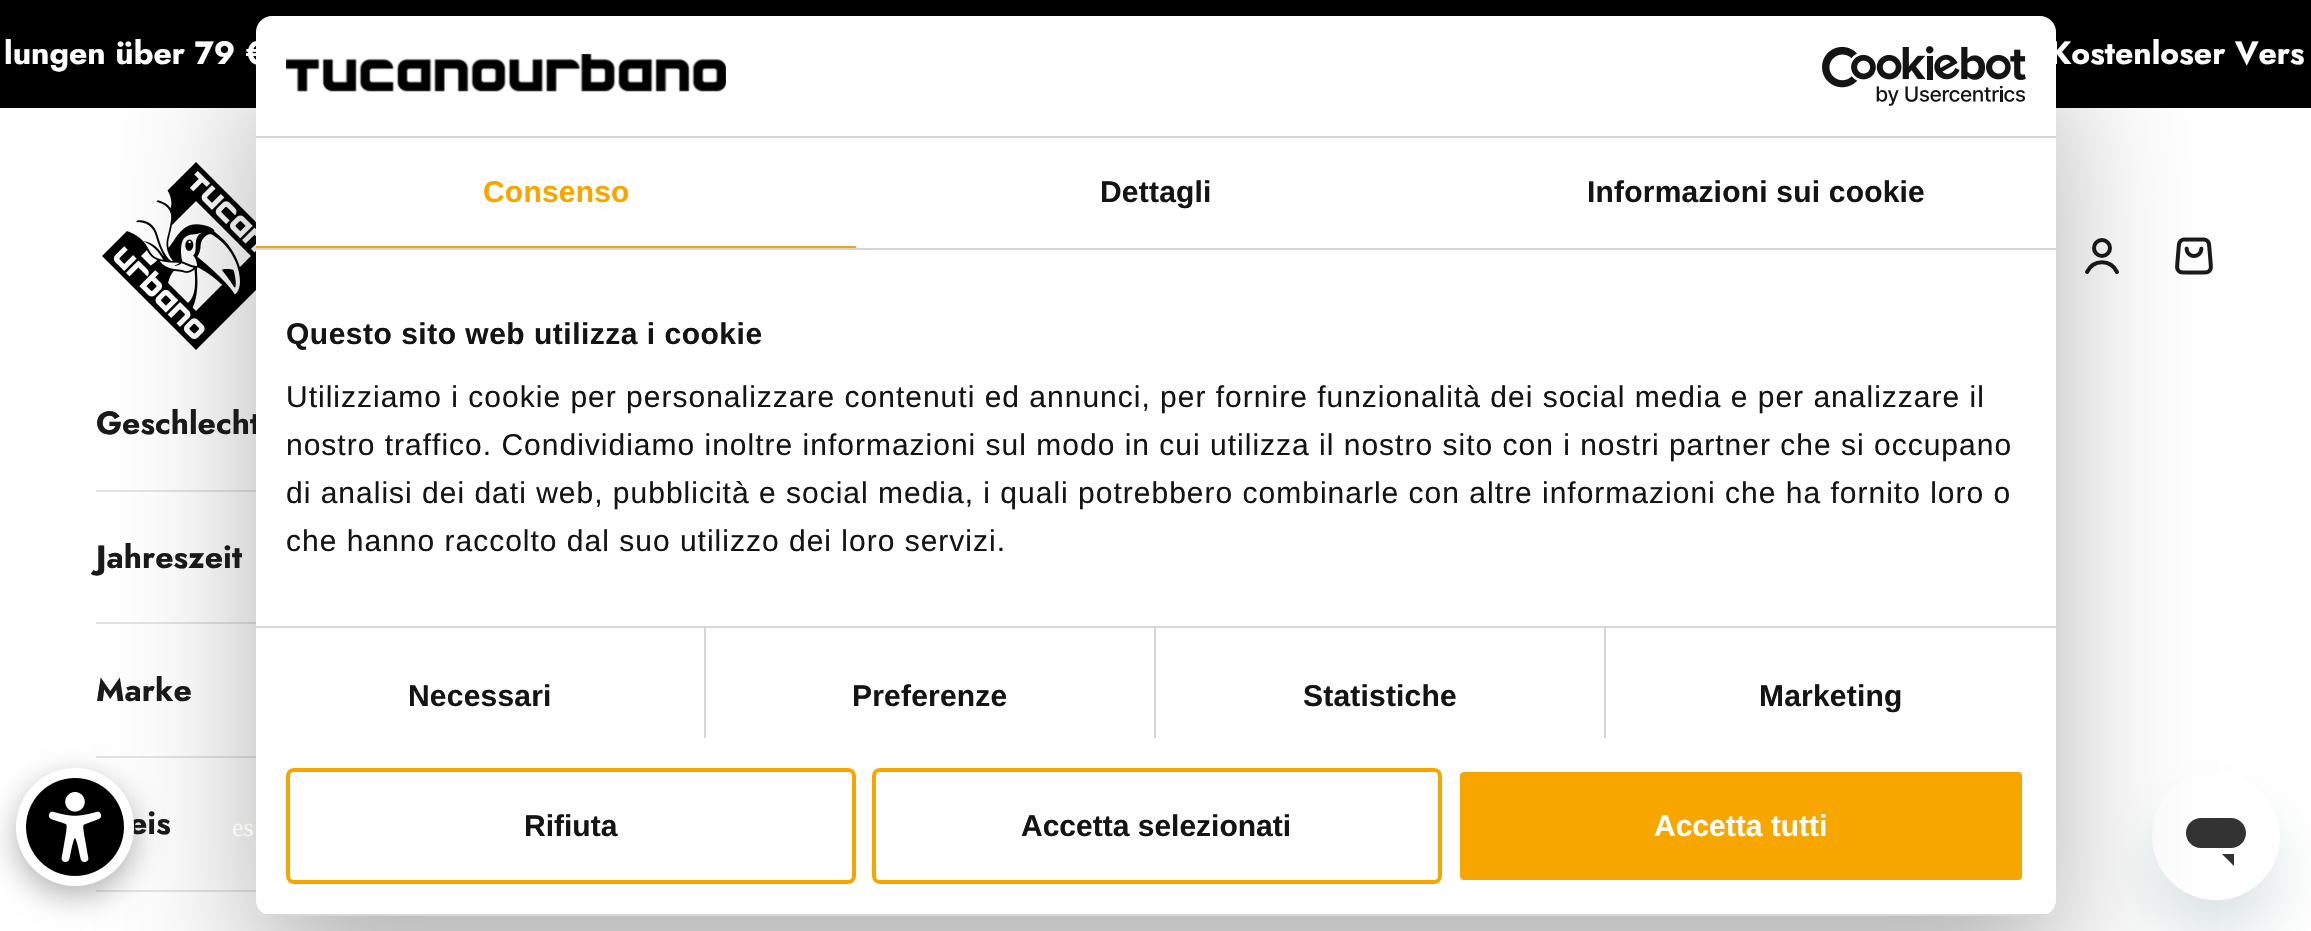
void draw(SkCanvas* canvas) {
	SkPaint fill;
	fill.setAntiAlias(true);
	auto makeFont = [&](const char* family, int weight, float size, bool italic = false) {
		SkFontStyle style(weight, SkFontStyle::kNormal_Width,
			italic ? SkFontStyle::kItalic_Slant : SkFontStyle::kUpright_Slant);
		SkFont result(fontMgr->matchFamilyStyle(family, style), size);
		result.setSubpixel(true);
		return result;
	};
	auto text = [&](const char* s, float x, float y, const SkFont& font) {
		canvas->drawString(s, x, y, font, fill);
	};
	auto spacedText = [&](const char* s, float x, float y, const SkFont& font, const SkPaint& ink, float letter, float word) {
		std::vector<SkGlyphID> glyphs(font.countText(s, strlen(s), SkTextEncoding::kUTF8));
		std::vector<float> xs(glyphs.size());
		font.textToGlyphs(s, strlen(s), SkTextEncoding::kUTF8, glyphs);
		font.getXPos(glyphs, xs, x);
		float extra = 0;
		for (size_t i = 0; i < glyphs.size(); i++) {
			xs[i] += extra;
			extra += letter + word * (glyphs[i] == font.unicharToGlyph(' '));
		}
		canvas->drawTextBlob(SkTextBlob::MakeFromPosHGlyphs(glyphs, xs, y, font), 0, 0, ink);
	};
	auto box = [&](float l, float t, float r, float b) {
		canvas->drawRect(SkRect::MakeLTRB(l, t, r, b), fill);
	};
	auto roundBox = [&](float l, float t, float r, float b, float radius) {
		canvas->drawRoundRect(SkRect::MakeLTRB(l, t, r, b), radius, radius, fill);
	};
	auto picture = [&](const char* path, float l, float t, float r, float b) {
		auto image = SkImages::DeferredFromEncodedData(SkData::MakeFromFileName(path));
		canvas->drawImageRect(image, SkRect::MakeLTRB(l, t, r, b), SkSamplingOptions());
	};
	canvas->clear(0xFFFFFFFF);
	fill.setColor(0xFF000000);
	box(0, 0, 2311, 108);
	picture("image0.png", 102, 162, 256, 350);
	fill.setStyle(SkPaint::kStroke_Style);
	fill.setStrokeWidth(4);
	fill.setColor(0xFF1A1A1A);
	canvas->drawCircle(2102, 248, 8, fill);
	fill.setStrokeCap(SkPaint::kRound_Cap);
	canvas->drawPath(SkPathBuilder().moveTo(2087, 272).cubicTo(2093.5f, 259, 2110.5f, 259, 2117, 272).detach(), fill);
	picture("image1.png", 2175, 237, 2213, 275);
	fill.setStyle(SkPaint::kFill_Style);
	fill.setColor(0xFFE4E4E4);
	box(96, 490, 256, 492);
	box(96, 622, 256, 624);
	box(96, 756, 256, 758);
	box(96, 890, 256, 892);
	canvas->save();
	canvas->clipPath(SkPathBuilder(SkPathFillType::kEvenOdd).moveTo(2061, 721).lineTo(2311, 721).lineTo(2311, 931).lineTo(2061, 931).close().moveTo(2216, 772).cubicTo(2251.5f, 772, 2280, 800.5f, 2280, 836).cubicTo(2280, 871.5f, 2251.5f, 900, 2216, 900).cubicTo(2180.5f, 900, 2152, 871.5f, 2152, 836).cubicTo(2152, 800.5f, 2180.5f, 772, 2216, 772).close().detach(), true);
	fill.setColor(0x2617494D);
	fill.setMaskFilter(SkMaskFilter::MakeBlur(kNormal_SkBlurStyle, 30));
	canvas->drawRoundRect(SkRect::MakeLTRB(2152, 812, 2280, 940), 64, 64, fill);
	fill.setMaskFilter(nullptr);
	canvas->restore();
	picture("image4.png", 2184, 818, 2246, 900);
	fill.setColor(0x4D000000);
	fill.setMaskFilter(SkMaskFilter::MakeBlur(kNormal_SkBlurStyle, 68));
	canvas->drawRoundRect(SkRect::MakeLTRB(256, 80, 2056, 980), 16, 16, fill);
	fill.setMaskFilter(nullptr);
	fill.setMaskFilter(SkMaskFilter::MakeBlur(kNormal_SkBlurStyle, 15));
	canvas->drawRoundRect(SkRect::MakeLTRB(16, 778, 134, 896), 59, 59, fill);
	fill.setMaskFilter(nullptr);
	auto font1 = makeFont("Jost", 700, 32);
	fill.setColor(0xFFFFFFFF);
	text("lungen über 79 €", 4, 64, font1);
	text("Kostenloser Vers", 2049, 64, font1);
	fill.setColor(0xFF1A1A1A);
	text("Geschlecht", 96, 434, font1);
	text("Jahreszeit", 96, 568, font1);
	text("Marke", 96, 701, font1);
	text("eis", 129, 834, font1);
	fill.setColor(0xFFFFFFFF);
	roundBox(256, 16, 2056, 916, 16);
	fill.setColor(0xFFD6D6D6);
	box(256, 136, 2056, 138);
	picture("image2.png", 286, 53, 726, 92);
	picture("image3.png", 1822, 46, 2026, 106);
	box(256, 248, 2056, 250);
	fill.setColor(0xFFF7A600);
	box(256, 246, 856, 248);
	auto font2 = makeFont("Liberation Sans", 700, 30);
	spacedText("Consenso", 483, 202, font2, fill, 0.2f, 0);
	fill.setColor(0xFF141414);
	spacedText("Dettagli", 1100, 202, font2, fill, 0.2f, 0);
	spacedText("Informazioni sui cookie", 1587, 202, font2, fill, 0.2f, 0);
	fill.setColor(0xFFD6D6D6);
	box(256, 626, 2056, 628);
	fill.setColor(0xFF141414);
	spacedText("Questo sito web utilizza i cookie", 286, 344, font2, fill, 0.5f, 0);
	auto font3 = makeFont("Liberation Sans", 400, 30);
	spacedText("Utilizziamo i cookie per personalizzare contenuti ed annunci, per fornire funzionalità dei social media e per analizzare il", 286, 407, font3, fill, 1, 0);
	spacedText("nostro traffico. Condividiamo inoltre informazioni sul modo in cui utilizza il nostro sito con i nostri partner che si occupano", 286, 455, font3, fill, 1, 0);
	spacedText("di analisi dei dati web, pubblicità e social media, i quali potrebbero combinarle con altre informazioni che ha fornito loro o", 286, 503, font3, fill, 1, 0);
	spacedText("che hanno raccolto dal suo utilizzo dei loro servizi.", 286, 551, font3, fill, 1, 0);
	fill.setColor(0xFFD6D6D6);
	box(704, 628, 706, 738);
	fill.setColor(0xFF141414);
	spacedText("Necessari", 408, 706, font2, fill, 0.2f, 0);
	fill.setColor(0xFFD6D6D6);
	box(1154, 628, 1156, 738);
	fill.setColor(0xFF141414);
	spacedText("Preferenze", 852, 706, font2, fill, 0.2f, 0);
	fill.setColor(0xFFD6D6D6);
	box(1604, 628, 1606, 738);
	fill.setColor(0xFF141414);
	spacedText("Statistiche", 1303, 706, font2, fill, 0.2f, 0);
	spacedText("Marketing", 1759, 706, font2, fill, 0.2f, 0);
	canvas->save();
	canvas->clipPath(SkPathBuilder().moveTo(272, 16).lineTo(2040, 16).cubicTo(2049, 16, 2056, 23, 2056, 32).lineTo(2056, 900).cubicTo(2056, 909, 2049, 916, 2040, 916).lineTo(272, 916).cubicTo(263, 916, 256, 909, 256, 900).lineTo(256, 32).cubicTo(256, 23, 263, 16, 272, 16).close().detach(), true);
	fill.setColor(0xFFD6D6D6);
	box(256, 914, 2056, 916);
	canvas->restore();
	fill.setStyle(SkPaint::kStroke_Style);
	fill.setStrokeCap(SkPaint::kButt_Cap);
	fill.setColor(0xFFF7A600);
	canvas->drawRoundRect(SkRect::MakeLTRB(288, 770, 854, 882), 6, 6, fill);
	fill.setStyle(SkPaint::kFill_Style);
	fill.setColor(0xFF141414);
	text("Rifiuta", 524, 836, font2);
	fill.setStyle(SkPaint::kStroke_Style);
	fill.setColor(0xFFF7A600);
	canvas->drawRoundRect(SkRect::MakeLTRB(874, 770, 1440, 882), 6, 6, fill);
	fill.setStyle(SkPaint::kFill_Style);
	fill.setColor(0xFF141414);
	text("Accetta selezionati", 1021, 836, font2);
	fill.setColor(0xFFF7A600);
	canvas->drawRoundRect(SkRect::MakeLTRB(1458, 770, 2024, 882), 6, 6, fill);
	fill.setStyle(SkPaint::kStroke_Style);
	fill.setColor(0xFFFFFFFF);
	canvas->drawRoundRect(SkRect::MakeLTRB(1458, 770, 2024, 882), 6, 6, fill);
	fill.setStyle(SkPaint::kFill_Style);
	text("Accetta tutti", 1654, 836, font2);
	picture("image5.png", 16, 768, 134, 886);
	auto font4 = makeFont("Liberation Serif", 400, 26);
	fill.setColor(0xFFF8F6F1);
	text("es", 232, 836, font4);
}
